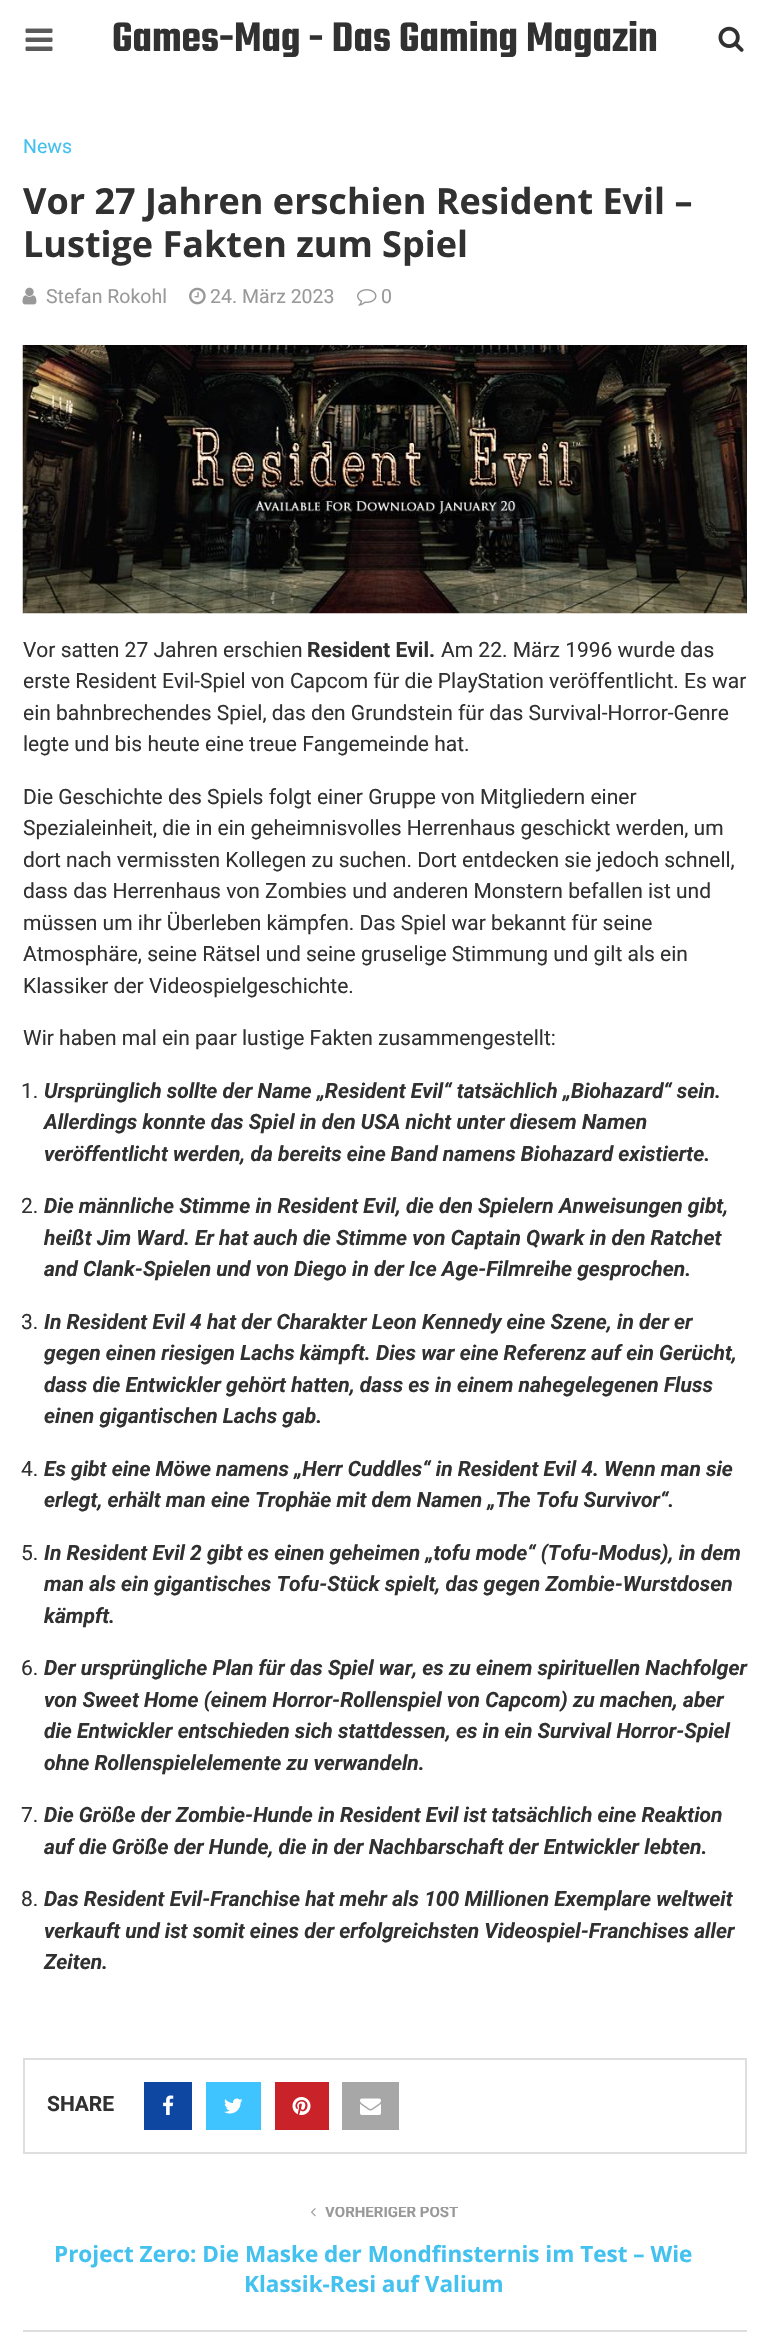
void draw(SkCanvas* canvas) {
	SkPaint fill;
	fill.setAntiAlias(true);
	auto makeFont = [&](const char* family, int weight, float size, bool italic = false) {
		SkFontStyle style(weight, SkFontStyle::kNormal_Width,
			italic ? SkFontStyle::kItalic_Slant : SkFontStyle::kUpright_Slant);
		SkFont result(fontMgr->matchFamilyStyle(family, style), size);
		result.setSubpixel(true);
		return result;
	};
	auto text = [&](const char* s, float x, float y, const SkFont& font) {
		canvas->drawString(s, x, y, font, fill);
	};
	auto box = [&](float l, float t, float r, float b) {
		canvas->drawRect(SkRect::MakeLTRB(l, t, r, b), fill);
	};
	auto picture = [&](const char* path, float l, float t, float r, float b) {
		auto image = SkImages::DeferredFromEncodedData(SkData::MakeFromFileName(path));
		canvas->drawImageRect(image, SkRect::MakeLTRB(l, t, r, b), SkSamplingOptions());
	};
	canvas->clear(0xFFFFFFFF);
	picture("image0.png", 25, 28, 53, 51);
	picture("image1.png", 718, 26, 744, 52);
	picture("image2.png", 22, 287, 37, 305);
	picture("image3.png", 189, 287, 206, 305);
	picture("image4.png", 357, 289, 377, 306);
	picture("image5.png", 22, 345, 747, 614);
	fill.setStyle(SkPaint::kStroke_Style);
	fill.setStrokeWidth(2);
	fill.setColor(0xFFDEDEDE);
	canvas->drawRect(SkRect::MakeLTRB(24, 2059, 746, 2153), fill);
	fill.setStyle(SkPaint::kFill_Style);
	fill.setColor(0xFF0D47A1);
	box(144, 2082, 192, 2130);
	picture("image6.png", 163, 2095, 174, 2115);
	fill.setColor(0xFF40C4FF);
	box(206, 2082, 261, 2130);
	picture("image7.png", 224, 2098, 243, 2114);
	fill.setColor(0xFFC92228);
	box(275, 2082, 329, 2130);
	picture("image8.png", 292, 2097, 311, 2115);
	fill.setColor(0xFFA7A7A7);
	box(342, 2082, 399, 2130);
	picture("image9.png", 360, 2098, 381, 2115);
	picture("image10.png", 311, 2208, 316, 2217);
	fill.setColor(0xFFDEDEDE);
	box(23, 2330, 747, 2332);
	auto font1 = makeFont("Teko", 600, 45);
	fill.setColor(0xFF313131);
	text("Games-Mag - Das Gaming Magazin", 112, 51, font1);
	auto font2 = makeFont("Roboto", 400, 19.5f);
	fill.setColor(0xFF43C1EF);
	text("News", 23, 153, font2);
	auto font3 = makeFont("Open Sans", 700, 36);
	fill.setColor(0xFF313131);
	text("Vor 27 Jahren erschien Resident Evil –", 23, 214, font3);
	text("Lustige Fakten zum Spiel", 23, 257, font3);
	fill.setColor(0xFF999999);
	text("Stefan Rokohl", 46, 303, font2);
	text("24. März 2023", 210, 303, font2);
	text("0", 381, 303, font2);
	auto font4 = makeFont("Roboto", 400, 21);
	fill.setColor(0xFF313131);
	text("Vor satten 27 Jahren erschien", 23, 657, font4);
	auto font5 = makeFont("Roboto", 700, 21);
	text("Resident Evil.", 307, 657, font5);
	text("Am 22. März 1996 wurde das", 441, 657, font4);
	text("erste Resident Evil-Spiel von Capcom für die PlayStation veröffentlicht. Es war", 23, 688, font4);
	text("ein bahnbrechendes Spiel, das den Grundstein für das Survival-Horror-Genre", 23, 720, font4);
	text("legte und bis heute eine treue Fangemeinde hat.", 23, 751, font4);
	text("Die Geschichte des Spiels folgt einer Gruppe von Mitgliedern einer", 23, 804, font4);
	text("Spezialeinheit, die in ein geheimnisvolles Herrenhaus geschickt werden, um", 23, 835, font4);
	text("dort nach vermissten Kollegen zu suchen. Dort entdecken sie jedoch schnell,", 23, 867, font4);
	text("dass das Herrenhaus von Zombies und anderen Monstern befallen ist und", 23, 898, font4);
	text("müssen um ihr Überleben kämpfen. Das Spiel war bekannt für seine", 23, 930, font4);
	text("Atmosphäre, seine Rätsel und seine gruselige Stimmung und gilt als ein", 23, 961, font4);
	text("Klassiker der Videospielgeschichte.", 23, 993, font4);
	text("Wir haben mal ein paar lustige Fakten zusammengestellt:", 23, 1045, font4);
	text("1.", 21, 1098, font4);
	auto font6 = makeFont("Roboto", 700, 21, true);
	text("Ursprünglich sollte der Name „Resident Evil“ tatsächlich „Biohazard“ sein.", 44, 1098, font6);
	text("Allerdings konnte das Spiel in den USA nicht unter diesem Namen", 44, 1129, font6);
	text("veröffentlicht werden, da bereits eine Band namens Biohazard existierte.", 44, 1161, font6);
	text("2.", 21, 1213, font4);
	text("Die männliche Stimme in Resident Evil, die den Spielern Anweisungen gibt,", 44, 1213, font6);
	text("heißt Jim Ward. Er hat auch die Stimme von Captain Qwark in den Ratchet", 44, 1245, font6);
	text("and Clank-Spielen und von Diego in der Ice Age-Filmreihe gesprochen.", 44, 1276, font6);
	text("3.", 21, 1329, font4);
	text("In Resident Evil 4 hat der Charakter Leon Kennedy eine Szene, in der er", 44, 1329, font6);
	text("gegen einen riesigen Lachs kämpft. Dies war eine Referenz auf ein Gerücht,", 44, 1360, font6);
	text("dass die Entwickler gehört hatten, dass es in einem nahegelegenen Fluss", 44, 1392, font6);
	text("einen gigantischen Lachs gab.", 44, 1423, font6);
	text("4.", 21, 1476, font4);
	text("Es gibt eine Möwe namens „Herr Cuddles“ in Resident Evil 4. Wenn man sie", 44, 1476, font6);
	text("erlegt, erhält man eine Trophäe mit dem Namen „The Tofu Survivor“.", 44, 1507, font6);
	text("5.", 21, 1560, font4);
	text("In Resident Evil 2 gibt es einen geheimen „tofu mode“ (Tofu-Modus), in dem", 44, 1560, font6);
	text("man als ein gigantisches Tofu-Stück spielt, das gegen Zombie-Wurstdosen", 44, 1591, font6);
	text("kämpft.", 44, 1623, font6);
	text("6.", 21, 1675, font4);
	text("Der ursprüngliche Plan für das Spiel war, es zu einem spirituellen Nachfolger", 44, 1675, font6);
	text("von Sweet Home (einem Horror-Rollenspiel von Capcom) zu machen, aber", 44, 1707, font6);
	text("die Entwickler entschieden sich stattdessen, es in ein Survival Horror-Spiel", 44, 1738, font6);
	text("ohne Rollenspielelemente zu verwandeln.", 44, 1770, font6);
	text("7.", 21, 1822, font4);
	text("Die Größe der Zombie-Hunde in Resident Evil ist tatsächlich eine Reaktion", 44, 1822, font6);
	text("auf die Größe der Hunde, die in der Nachbarschaft der Entwickler lebten.", 44, 1854, font6);
	text("8.", 21, 1906, font4);
	text("Das Resident Evil-Franchise hat mehr als 100 Millionen Exemplare weltweit", 44, 1906, font6);
	text("verkauft und ist somit eines der erfolgreichsten Videospiel-Franchises aller", 44, 1938, font6);
	text("Zeiten.", 44, 1969, font6);
	text("SHARE", 47, 2111, font5);
	canvas->save();
	canvas->clipRect(SkRect::MakeLTRB(23, 2207, 747, 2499));
	auto font7 = makeFont("Roboto", 700, 15);
	fill.setColor(0xFF999999);
	text("VORHERIGER POST", 325, 2217, font7);
	canvas->restore();
	auto font8 = makeFont("Open Sans", 700, 22.5f);
	fill.setColor(0xFF43C1EF);
	text("Project Zero: Die Maske der Mondfinsternis im Test – Wie", 54, 2262, font8);
	text("Klassik-Resi auf Valium", 244, 2292, font8);
}
